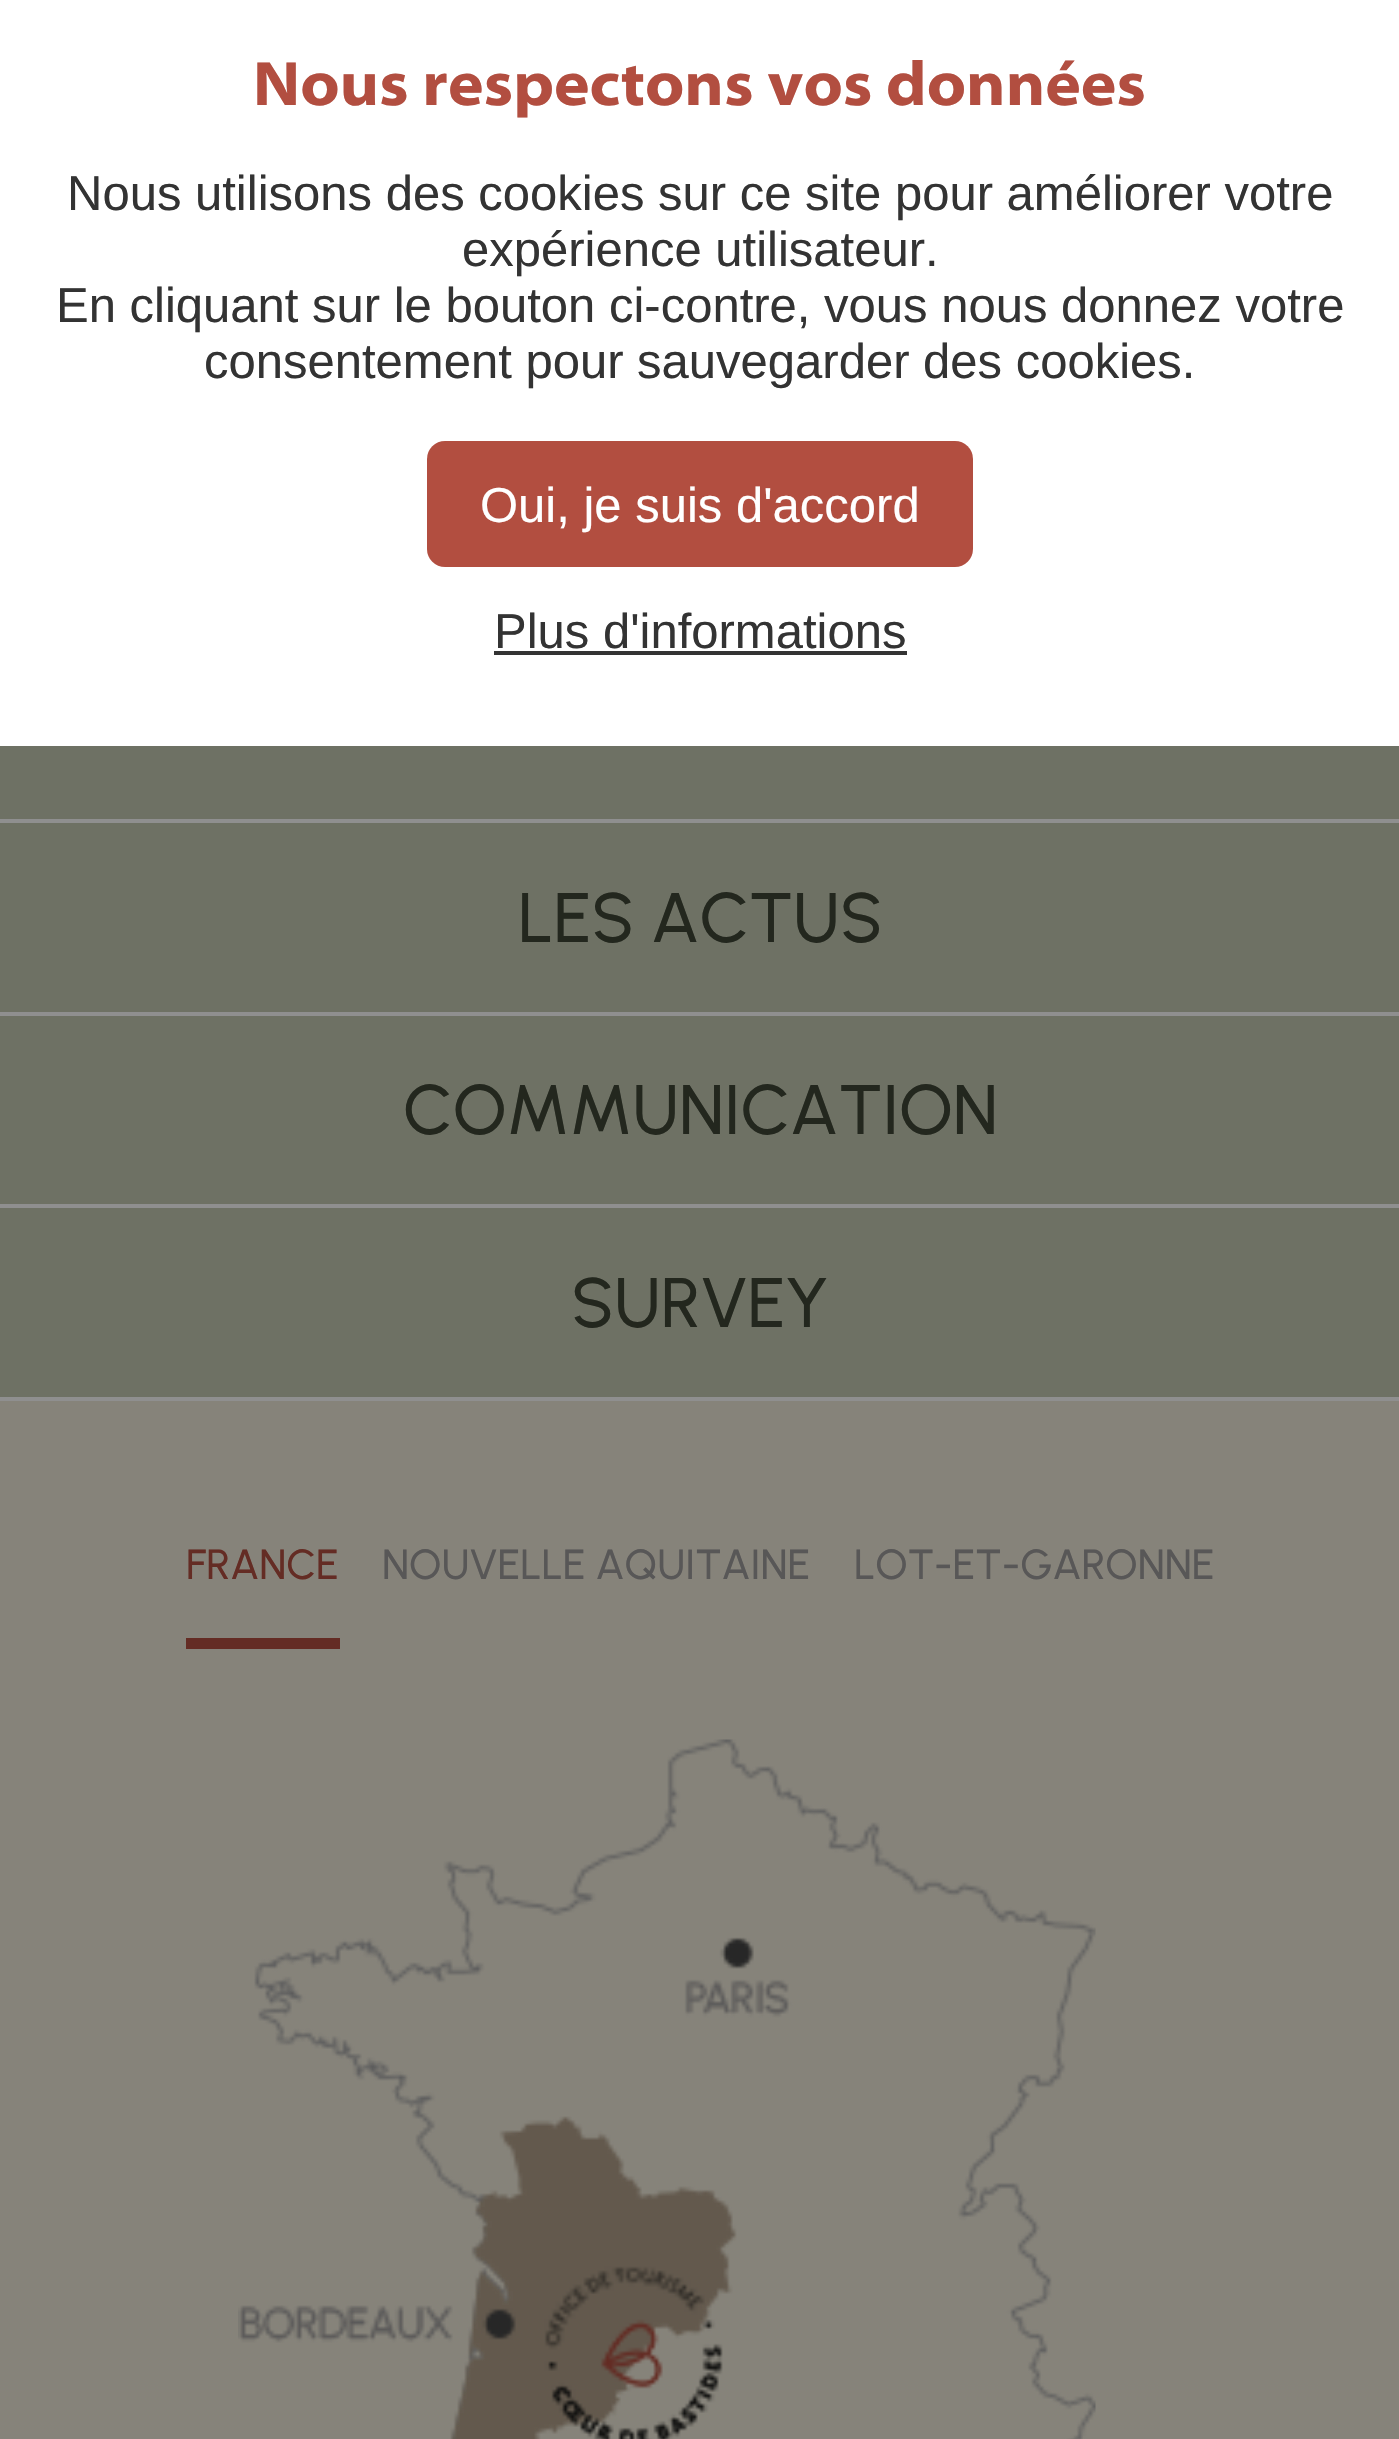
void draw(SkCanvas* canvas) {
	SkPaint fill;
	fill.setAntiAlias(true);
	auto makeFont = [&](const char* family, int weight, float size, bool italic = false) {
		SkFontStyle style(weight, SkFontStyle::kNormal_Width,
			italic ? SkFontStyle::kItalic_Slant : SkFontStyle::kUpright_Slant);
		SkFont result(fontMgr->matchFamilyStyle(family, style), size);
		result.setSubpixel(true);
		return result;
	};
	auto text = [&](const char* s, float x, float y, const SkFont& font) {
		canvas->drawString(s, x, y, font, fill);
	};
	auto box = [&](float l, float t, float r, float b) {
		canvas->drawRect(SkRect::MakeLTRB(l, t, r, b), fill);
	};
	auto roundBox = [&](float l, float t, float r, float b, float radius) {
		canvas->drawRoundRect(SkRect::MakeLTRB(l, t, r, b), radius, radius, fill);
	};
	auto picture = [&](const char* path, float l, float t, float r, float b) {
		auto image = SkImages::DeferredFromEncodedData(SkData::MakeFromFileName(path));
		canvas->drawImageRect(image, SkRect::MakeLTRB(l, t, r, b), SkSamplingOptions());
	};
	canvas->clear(0xFF6E7164);
	fill.setColor(0xFFFFFFFF);
	box(0, 0, 1399, 746);
	fill.setColor(0xFFB24E40);
	roundBox(427, 441, 973, 567, 18);
	fill.setColor(0xFF333333);
	box(494, 651, 907, 655);
	fill.setColor(0xFF8F8F8F);
	box(0, 819, 1399, 823);
	box(0, 1012, 1399, 1016);
	box(0, 1204, 1399, 1208);
	box(0, 1397, 1399, 1401);
	fill.setColor(0xFF86837A);
	box(0, 1401, 1399, 2439);
	fill.setColor(0xFF642C24);
	box(186, 1638, 340, 1649);
	picture("image0.png", 238, 1739, 1096, 2439);
	auto font1 = makeFont("Myriad", 700, 63);
	fill.setColor(0xFFB24E40);
	text("Nous respectons vos données", 253, 105, font1);
	auto font2 = makeFont("Liberation Sans", 400, 49);
	fill.setColor(0xFF333333);
	text("Nous utilisons des cookies sur ce site pour améliorer votre", 67, 210, font2);
	text("expérience utilisateur.", 462, 266, font2);
	text("En cliquant sur le bouton ci-contre, vous nous donnez votre", 56, 322, font2);
	text("consentement pour sauvegarder des cookies.", 204, 378, font2);
	fill.setColor(0xFFFFFFFF);
	text("Oui, je suis d'accord", 480, 522, font2);
	fill.setColor(0xFF333333);
	text("Plus d'informations", 494, 648, font2);
	auto font3 = makeFont("Urbanist", 500, 70);
	fill.setColor(0xFF23271E);
	text("LES ACTUS", 518, 942, font3);
	text("COMMUNICATION", 403, 1134, font3);
	text("SURVEY", 571, 1327, font3);
	auto font4 = makeFont("Urbanist", 500, 42);
	fill.setColor(0xFF642C24);
	text("FRANCE", 186, 1579, font4);
	fill.setColor(0xFF585757);
	text("NOUVELLE AQUITAINE", 382, 1579, font4);
	text("LOT-ET-GARONNE", 854, 1579, font4);
}
